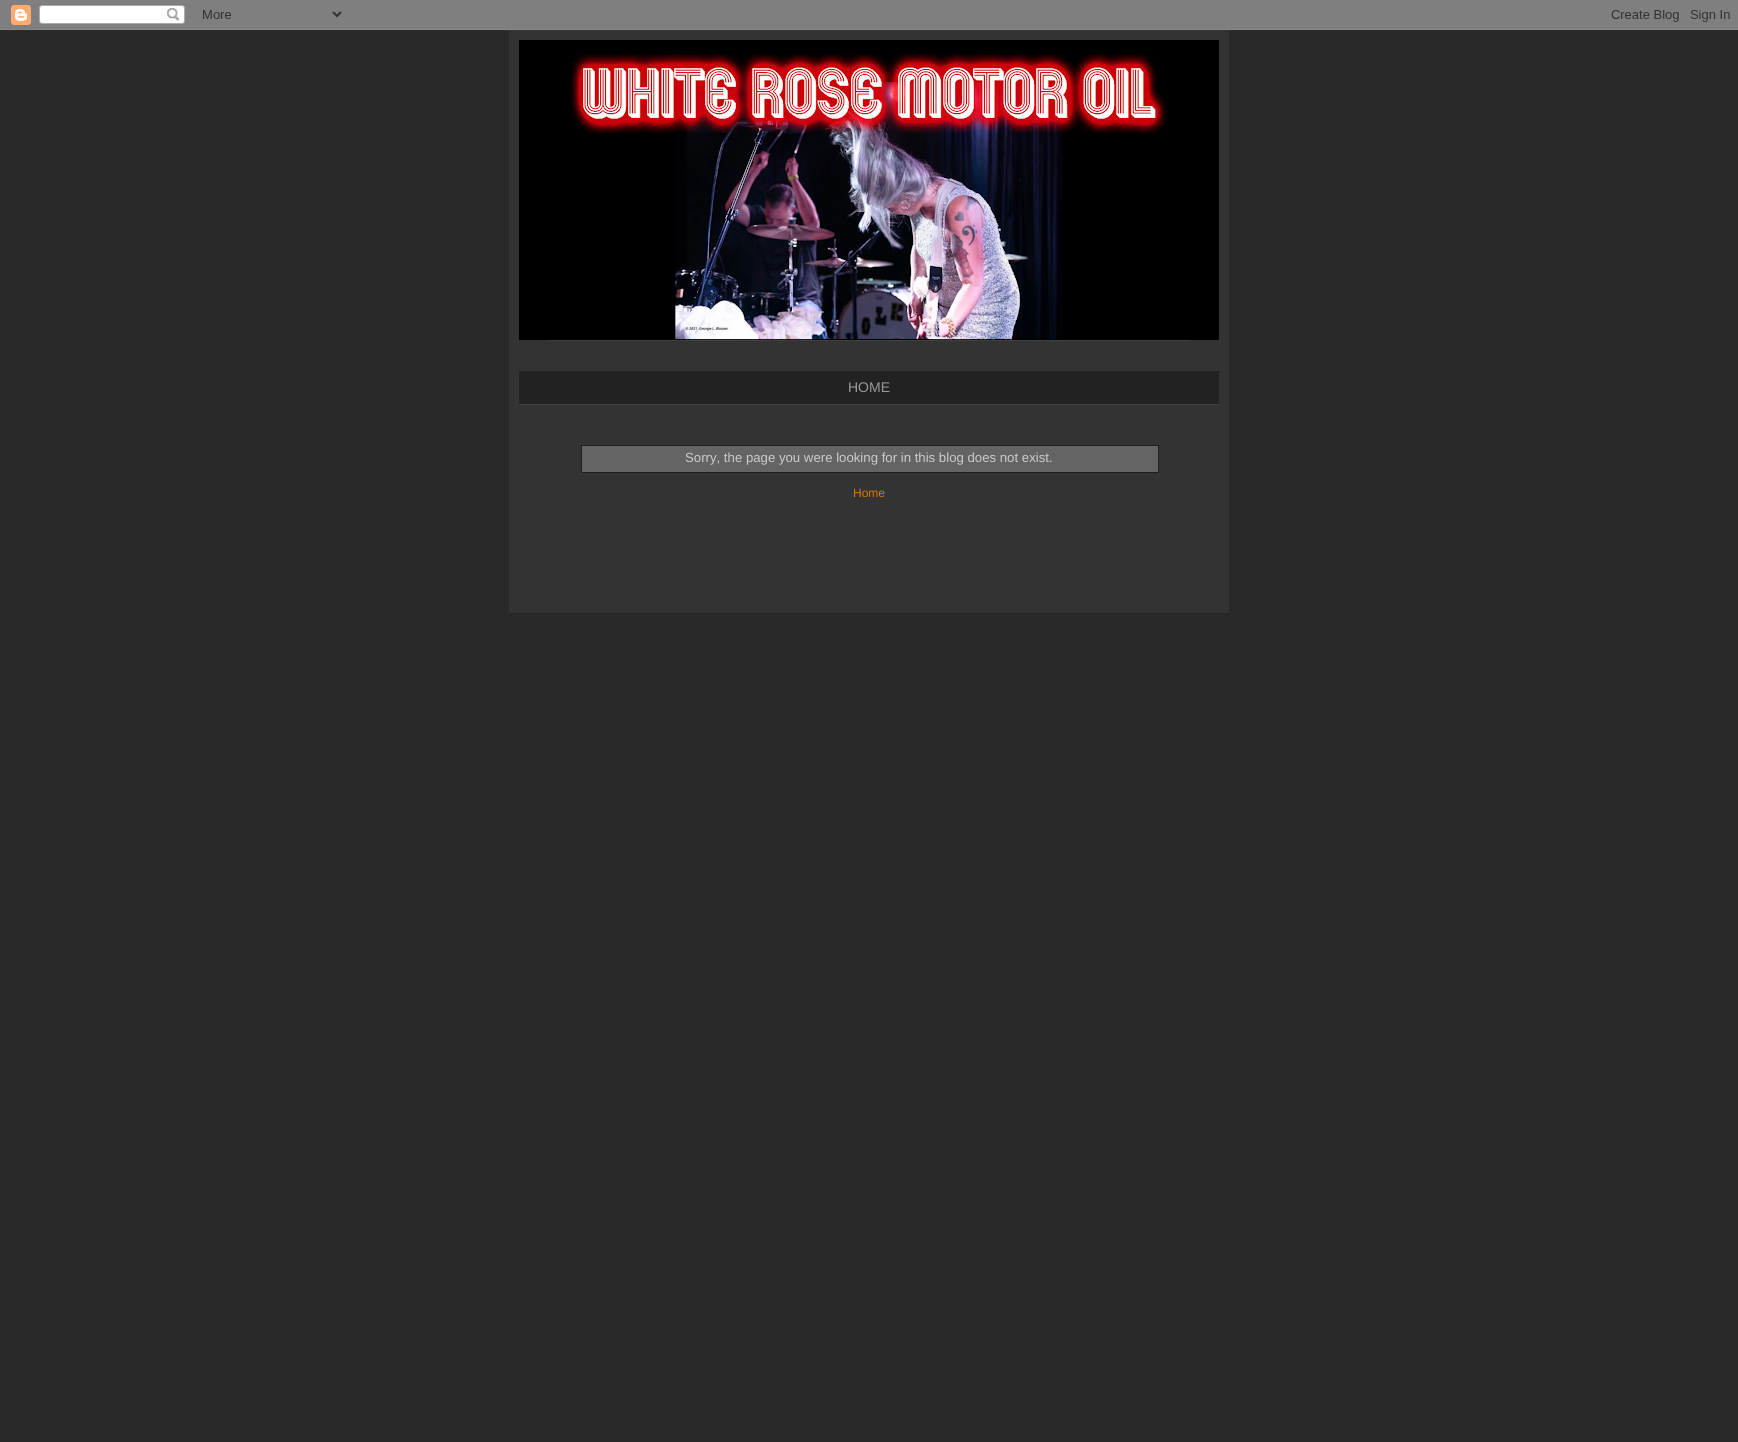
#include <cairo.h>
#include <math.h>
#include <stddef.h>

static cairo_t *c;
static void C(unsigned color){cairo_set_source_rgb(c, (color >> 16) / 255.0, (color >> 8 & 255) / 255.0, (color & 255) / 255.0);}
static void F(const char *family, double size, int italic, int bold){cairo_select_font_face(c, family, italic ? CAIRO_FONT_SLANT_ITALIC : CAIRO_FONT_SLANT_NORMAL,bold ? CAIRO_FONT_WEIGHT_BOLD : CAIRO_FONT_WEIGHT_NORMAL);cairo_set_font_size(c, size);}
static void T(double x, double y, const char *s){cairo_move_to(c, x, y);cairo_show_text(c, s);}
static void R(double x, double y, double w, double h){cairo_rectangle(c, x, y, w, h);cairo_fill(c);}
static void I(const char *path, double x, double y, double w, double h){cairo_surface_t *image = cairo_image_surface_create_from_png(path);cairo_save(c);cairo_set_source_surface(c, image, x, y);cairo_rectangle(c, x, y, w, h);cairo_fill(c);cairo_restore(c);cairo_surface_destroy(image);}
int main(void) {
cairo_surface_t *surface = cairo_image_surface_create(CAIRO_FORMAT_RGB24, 1738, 1442);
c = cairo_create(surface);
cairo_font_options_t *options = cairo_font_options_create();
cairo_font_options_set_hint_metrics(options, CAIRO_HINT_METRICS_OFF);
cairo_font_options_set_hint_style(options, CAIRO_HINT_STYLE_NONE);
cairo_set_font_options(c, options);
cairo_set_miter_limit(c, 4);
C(0x292929);
cairo_paint(c);
I("1.png",0,0,1738,30);
C(0x333333);
R(509,30,720,583);
I("2.png",519,40,700,300);
C(0x404040);
R(549,340,640,1);
C(0x222222);
R(519,371,700,33);
C(0x404040);
R(519,404,700,1);
F("Liberation Sans",14,0,0);
C(0x999999);
T(848,392,"HOME");
cairo_rectangle(c,581.5,445.5,577,27);
C(0x1f1f1f);
cairo_set_line_width(c,1);
cairo_stroke(c);
C(0x646464);
R(582,446,576,26);
F("Liberation Sans",13.2,0,0);
C(0xcccccc);
T(685,462,"Sorry, the page you were looking for in this blog does not exist.");
F("Liberation Sans",12,0,0);
C(0xdd7700);
T(853,497,"Home");
cairo_surface_write_to_png(surface, "o.png");
cairo_font_options_destroy(options);
cairo_destroy(c);
cairo_surface_destroy(surface);
return 0;
}
